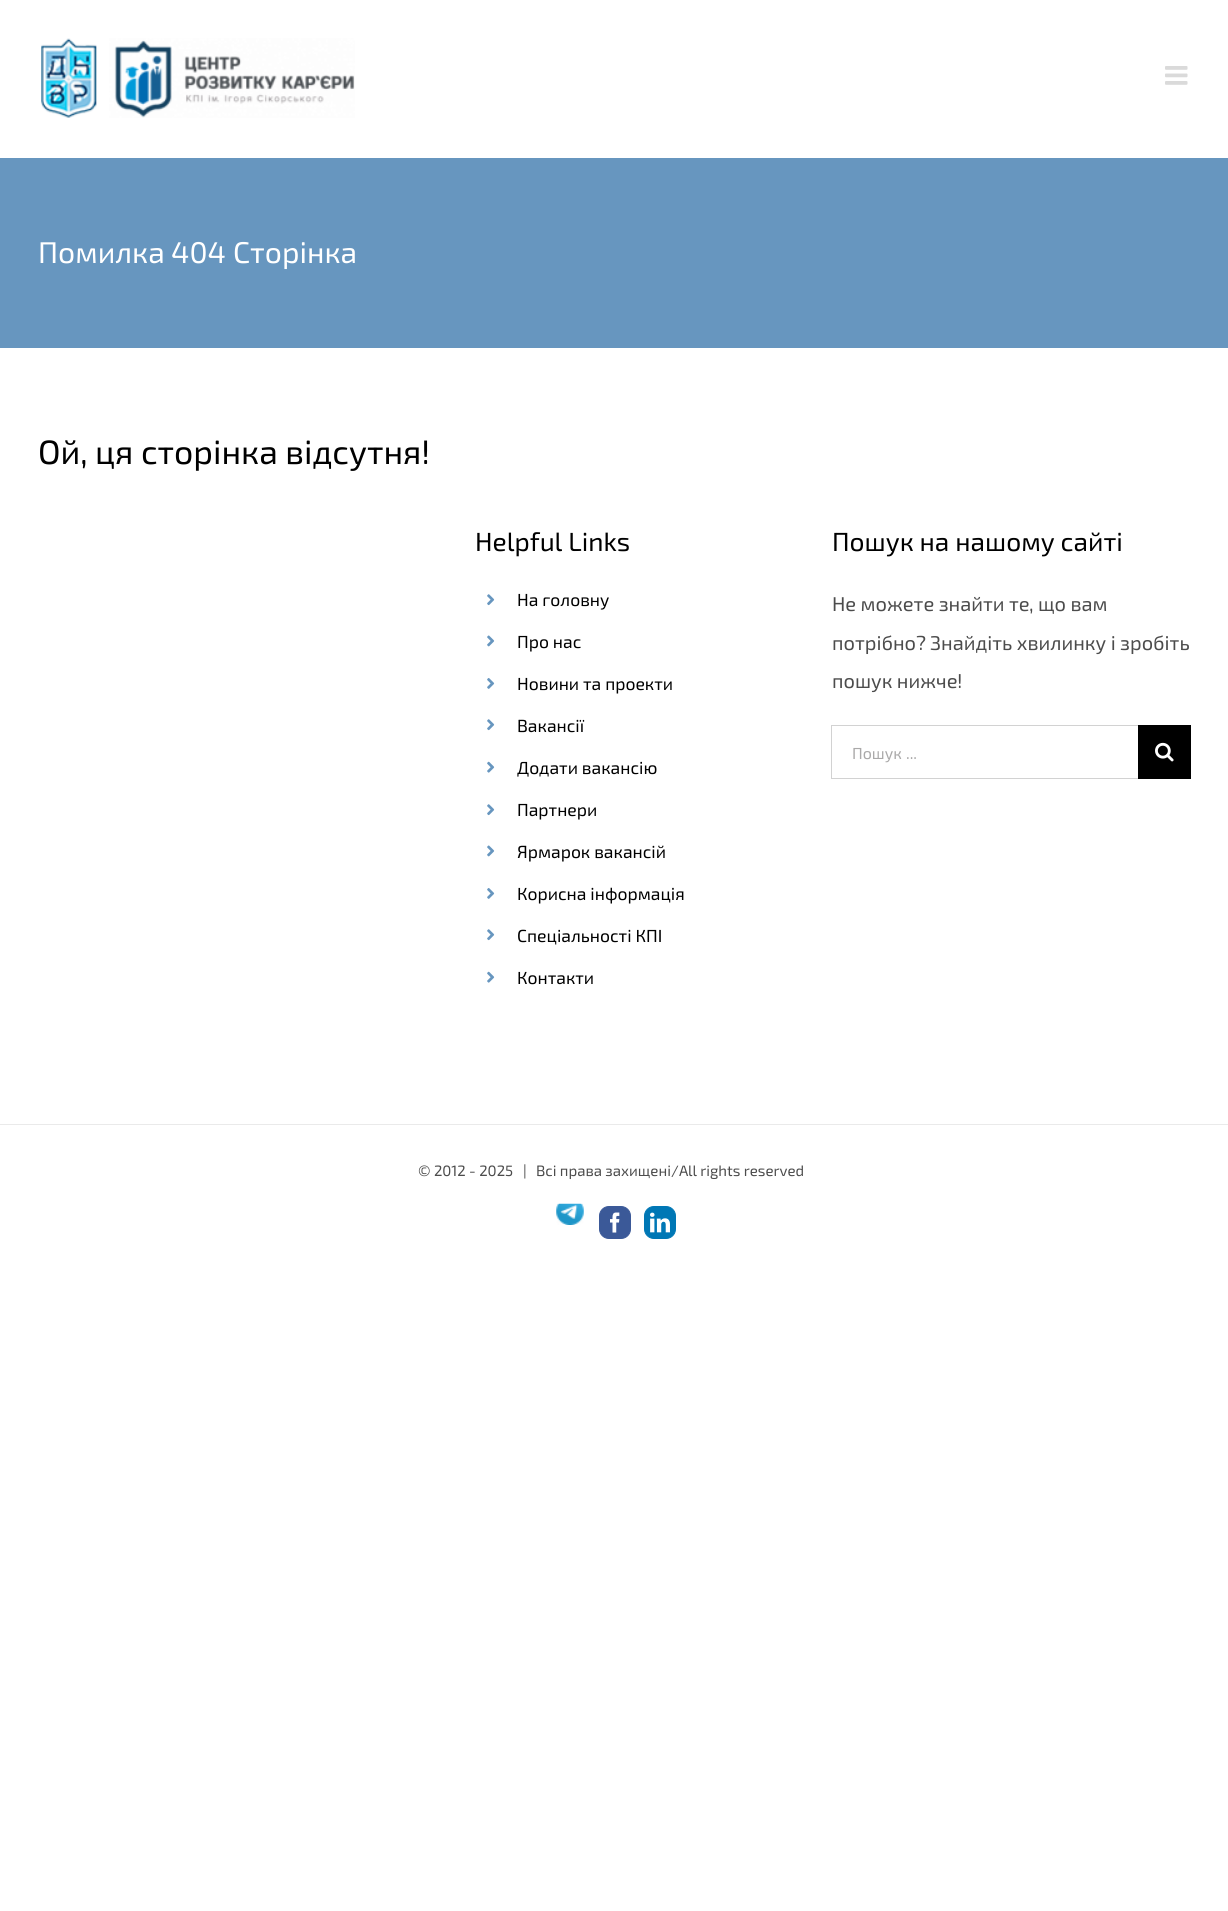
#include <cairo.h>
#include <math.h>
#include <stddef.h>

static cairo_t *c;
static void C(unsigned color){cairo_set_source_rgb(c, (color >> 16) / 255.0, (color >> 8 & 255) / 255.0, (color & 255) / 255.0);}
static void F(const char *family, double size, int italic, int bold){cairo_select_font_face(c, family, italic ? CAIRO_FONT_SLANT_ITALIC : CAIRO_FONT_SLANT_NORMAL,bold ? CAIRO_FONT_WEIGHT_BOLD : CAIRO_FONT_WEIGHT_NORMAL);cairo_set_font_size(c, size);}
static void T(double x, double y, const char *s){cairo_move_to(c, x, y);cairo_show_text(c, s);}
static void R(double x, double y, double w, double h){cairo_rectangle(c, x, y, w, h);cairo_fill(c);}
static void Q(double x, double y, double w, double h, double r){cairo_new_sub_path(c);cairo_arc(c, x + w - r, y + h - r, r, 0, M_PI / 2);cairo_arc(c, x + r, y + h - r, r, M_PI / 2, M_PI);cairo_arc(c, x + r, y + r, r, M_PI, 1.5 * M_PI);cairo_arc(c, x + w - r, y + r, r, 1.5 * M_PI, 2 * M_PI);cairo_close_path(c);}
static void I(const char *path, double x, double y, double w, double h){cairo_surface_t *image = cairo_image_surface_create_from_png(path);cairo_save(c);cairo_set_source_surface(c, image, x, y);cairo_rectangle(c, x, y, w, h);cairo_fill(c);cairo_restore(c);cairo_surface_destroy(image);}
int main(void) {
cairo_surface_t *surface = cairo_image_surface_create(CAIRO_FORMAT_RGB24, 1228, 1911);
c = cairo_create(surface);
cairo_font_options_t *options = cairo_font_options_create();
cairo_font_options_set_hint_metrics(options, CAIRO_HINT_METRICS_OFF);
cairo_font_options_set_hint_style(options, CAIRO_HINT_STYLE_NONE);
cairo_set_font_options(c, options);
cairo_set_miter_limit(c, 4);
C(0xffffff);
cairo_paint(c);
I("1.png",41,38,314,80);
I("2.png",1165,66,23,19);
C(0x6796bf);
R(0,158,1228,190);
F("Exo 2",30,0,0);
C(0xffffff);
T(38,263,"Помилка");
F("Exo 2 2",30,0,0);
T(171,263,"404");
F("Exo 2",30,0,0);
T(233,263,"Сторінка");
F("Exo 2",33.75,0,0);
C(0x000000);
T(38,464,"Ой");
F("Exo 2 2",33.75,0,0);
T(80,464,",");
F("Exo 2",33.75,0,0);
T(95,464,"ця сторінка відсутня");
F("Exo 2 2",33.75,0,0);
T(421,464,"!");
F("Exo 2 2",26.25,0,0);
T(475,551,"Helpful Links");
I("3.png",487,594,8,12);
F("Exo 2",17.5,0,0);
T(517,606,"На головну");
I("4.png",487,635,8,12);
T(517,648,"Про нас");
I("5.png",487,678,8,11);
T(517,690,"Новини та проекти");
I("3.png",487,719,8,12);
T(517,732,"Вакансії");
I("6.png",487,761,8,12);
T(517,774,"Додати вакансію");
I("3.png",487,804,8,12);
T(517,816,"Партнери");
I("4.png",487,845,8,12);
T(517,858,"Ярмарок вакансій");
I("5.png",487,888,8,11);
T(517,900,"Корисна інформація");
I("3.png",487,929,8,12);
T(517,942,"Спеціальності КПІ");
I("6.png",487,971,8,12);
T(517,984,"Контакти");
F("Exo 2",26.25,0,0);
T(832,551,"Пошук на нашому сайті");
F("Exo 2",20,0,0);
C(0x4c4c4c);
T(832,611,"Не можете знайти те");
F("Exo 2 2",20,0,0);
T(1029,611,",");
F("Exo 2",20,0,0);
T(1038,611,"що вам");
T(832,650,"потрібно");
F("Exo 2 2",20,0,0);
T(916,650,"?");
F("Exo 2",20,0,0);
T(930,650,"Знайдіть хвилинку і зробіть");
T(832,688,"пошук нижче");
F("Exo 2 2",20,0,0);
T(957,688,"!");
C(0xd2d2d2);
R(831,725,307,1);
R(831,778,307,1);
R(831,725,1,54);
F("Exo 2",16,0,0);
C(0xaaa9a9);
T(852,759,"Пошук");
F("Exo 2 2",16,0,0);
T(906,759,"...");
C(0x000000);
R(1138,725,53,54);
I("7.png",1155,742,19,20);
C(0xeaeaea);
R(0,1124,1228,1);
F("Exo 2 2",15,0,0);
C(0x4c4c4c);
T(418,1176,"© 2012 - 2025");
T(523,1176,"|");
F("Exo 2",15,0,0);
T(536,1176,"Всі права захищені");
F("Exo 2 2",15,0,0);
T(671,1176,"/");
F("Exo 2",15,0,0);
T(679,1176,"A");
F("Exo 2 2",15,0,0);
T(688,1176,"ll rights reserved");
I("8.png",556,1203,28,22);
C(0x3b5998);
Q(599.5,1206.5,31,32,9.5);
cairo_fill_preserve(c);
cairo_set_line_width(c,1);
cairo_stroke(c);
I("9.png",610,1212,10,21);
C(0x0077b5);
Q(644.5,1206.5,31,32,9.5);
cairo_fill_preserve(c);
cairo_stroke(c);
I("10.png",650,1212,20,21);
cairo_surface_write_to_png(surface, "o.png");
cairo_font_options_destroy(options);
cairo_destroy(c);
cairo_surface_destroy(surface);
return 0;
}
